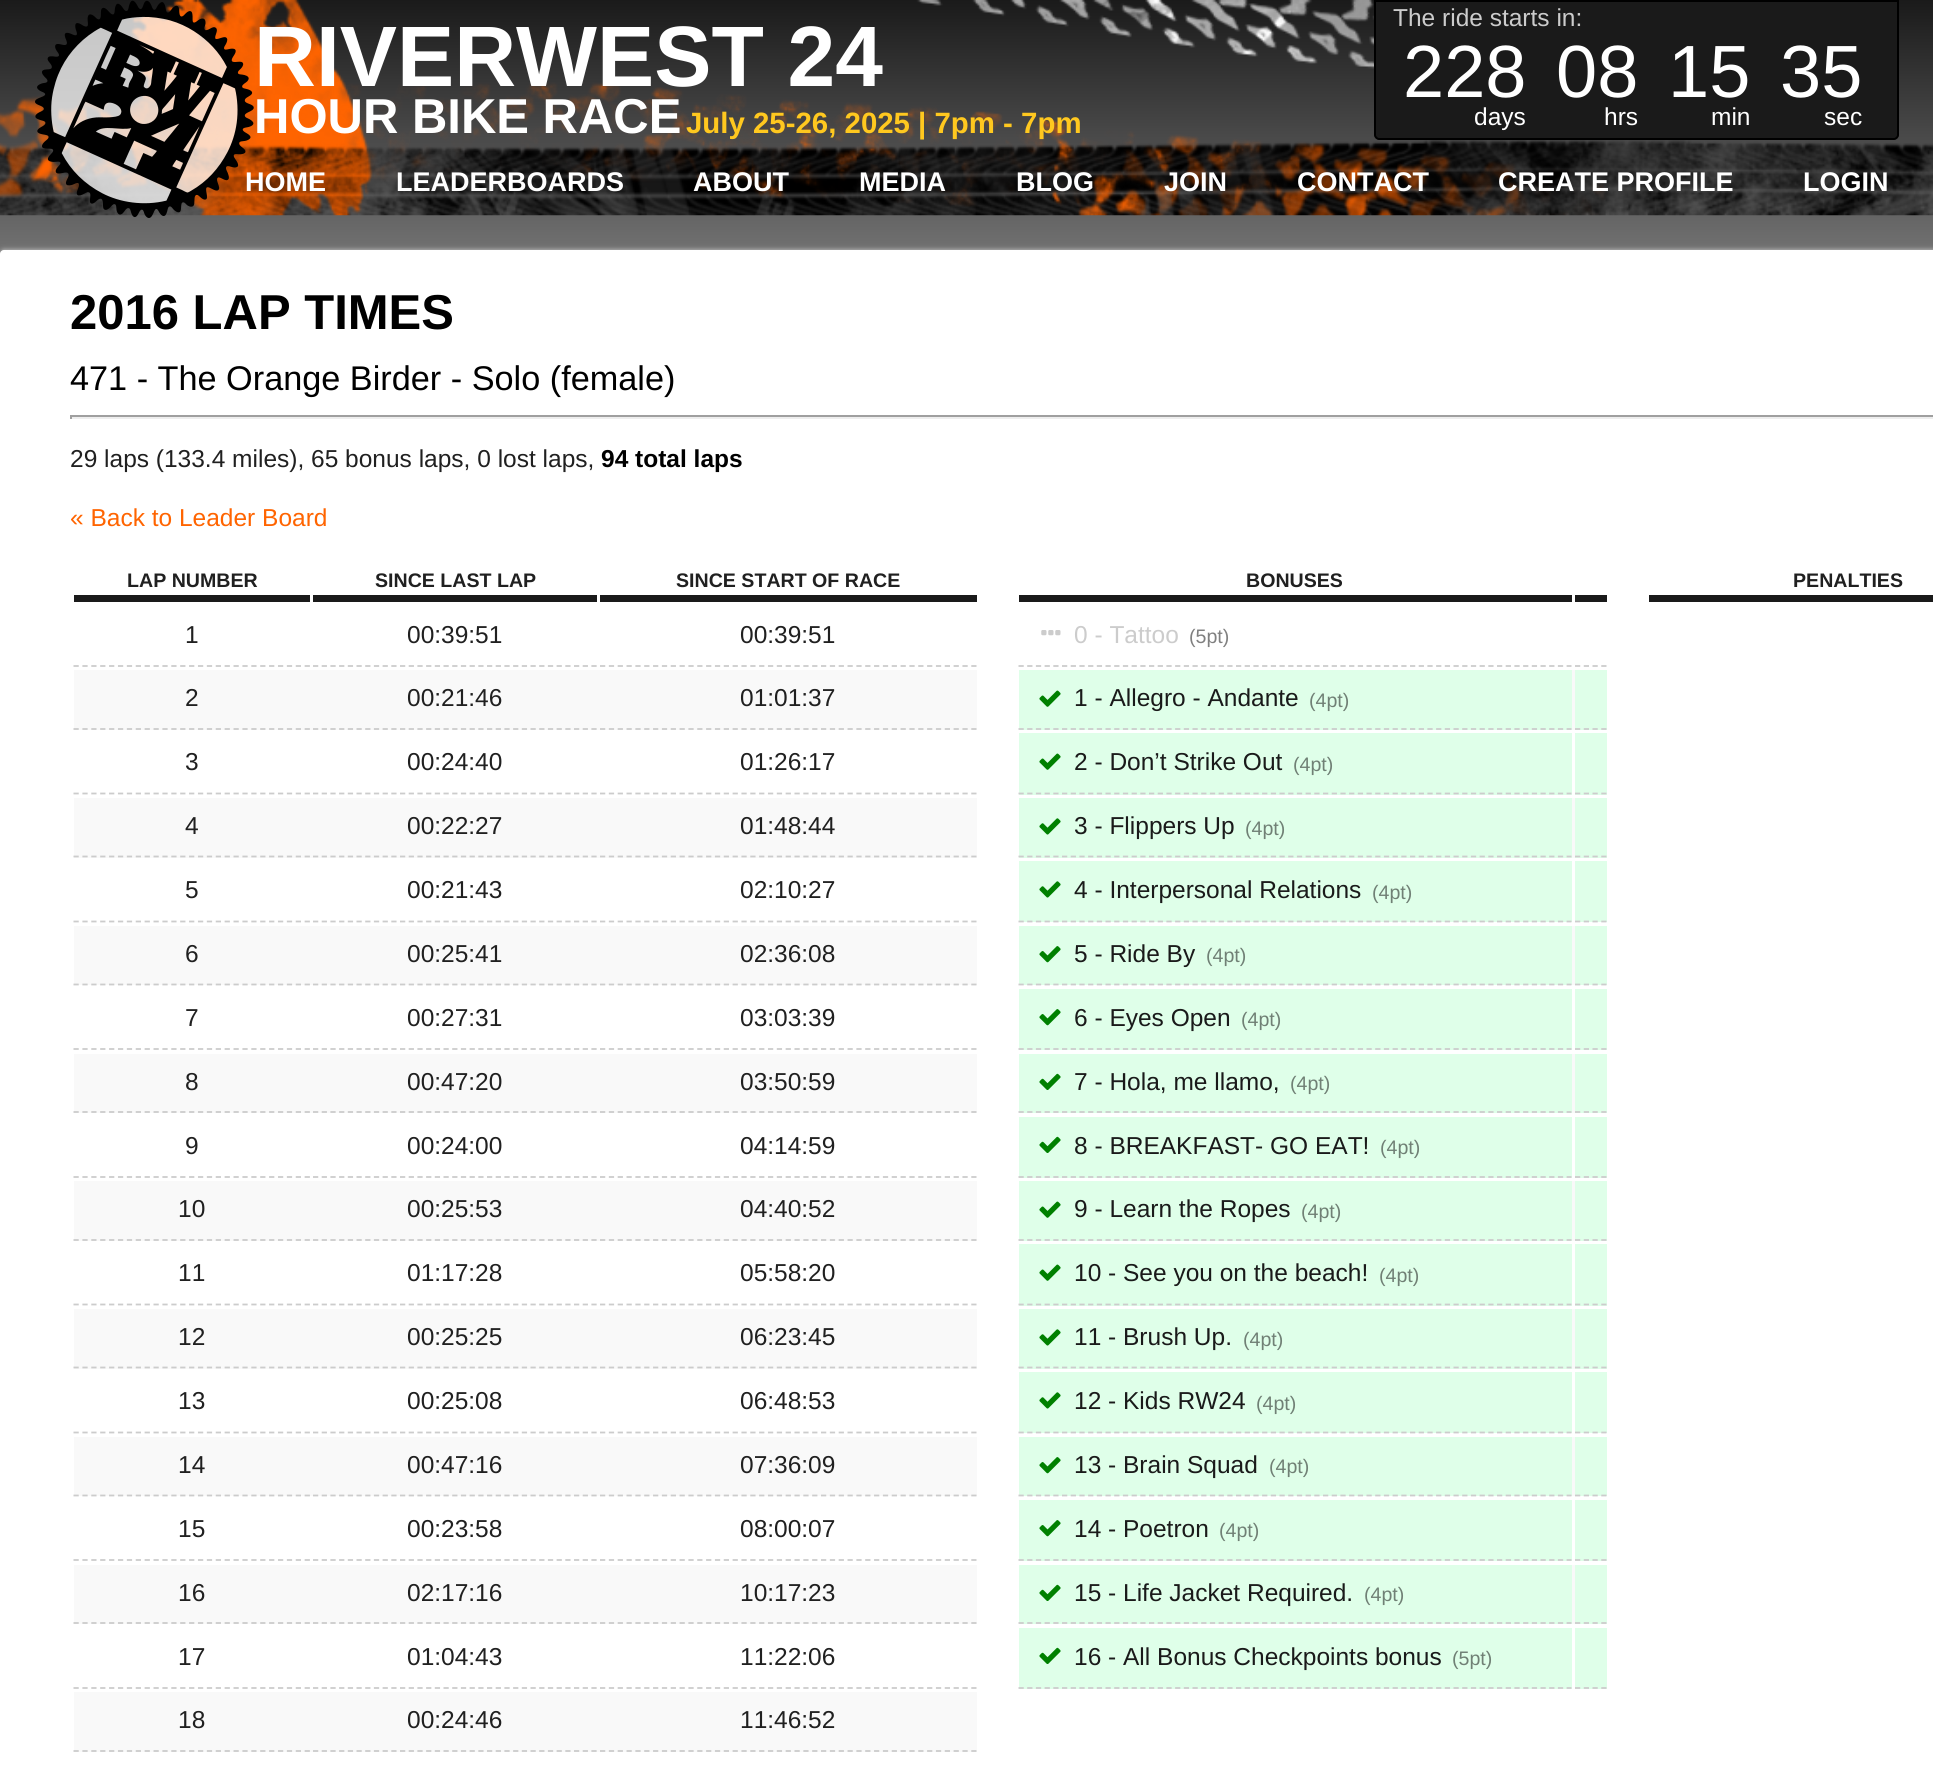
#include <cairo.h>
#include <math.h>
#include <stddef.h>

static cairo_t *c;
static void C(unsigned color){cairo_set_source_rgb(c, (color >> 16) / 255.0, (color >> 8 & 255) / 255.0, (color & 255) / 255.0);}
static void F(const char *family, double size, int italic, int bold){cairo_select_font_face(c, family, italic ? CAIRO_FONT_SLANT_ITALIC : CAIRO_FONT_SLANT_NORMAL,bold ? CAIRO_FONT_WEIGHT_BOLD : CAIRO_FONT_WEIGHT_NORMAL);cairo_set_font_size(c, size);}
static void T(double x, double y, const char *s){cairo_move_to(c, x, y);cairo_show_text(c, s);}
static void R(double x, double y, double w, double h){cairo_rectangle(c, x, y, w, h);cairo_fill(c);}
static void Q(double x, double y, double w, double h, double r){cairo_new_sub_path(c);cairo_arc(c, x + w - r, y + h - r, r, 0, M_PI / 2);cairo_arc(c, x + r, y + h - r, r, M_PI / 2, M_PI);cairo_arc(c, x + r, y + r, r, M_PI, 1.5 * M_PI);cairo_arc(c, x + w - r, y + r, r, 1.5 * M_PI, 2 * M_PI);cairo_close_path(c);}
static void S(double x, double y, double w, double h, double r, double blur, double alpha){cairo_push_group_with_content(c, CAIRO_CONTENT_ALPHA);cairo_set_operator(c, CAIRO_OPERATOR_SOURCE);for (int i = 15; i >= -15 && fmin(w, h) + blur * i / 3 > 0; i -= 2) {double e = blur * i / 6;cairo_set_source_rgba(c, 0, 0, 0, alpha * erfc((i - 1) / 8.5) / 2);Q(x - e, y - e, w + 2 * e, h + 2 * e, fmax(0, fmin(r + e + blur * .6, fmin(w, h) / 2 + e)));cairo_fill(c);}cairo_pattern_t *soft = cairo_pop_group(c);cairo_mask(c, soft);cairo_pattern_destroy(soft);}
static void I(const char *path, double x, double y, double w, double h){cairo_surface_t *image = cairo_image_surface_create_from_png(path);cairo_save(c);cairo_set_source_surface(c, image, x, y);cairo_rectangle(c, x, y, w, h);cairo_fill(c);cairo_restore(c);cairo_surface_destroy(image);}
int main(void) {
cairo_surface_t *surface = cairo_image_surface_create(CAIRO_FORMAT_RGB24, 1933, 1766);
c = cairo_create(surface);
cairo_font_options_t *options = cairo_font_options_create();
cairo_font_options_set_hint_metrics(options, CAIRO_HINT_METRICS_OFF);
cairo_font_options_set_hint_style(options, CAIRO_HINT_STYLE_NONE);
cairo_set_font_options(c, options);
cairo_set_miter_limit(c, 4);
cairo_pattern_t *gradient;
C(0xffffff);
cairo_paint(c);
gradient = cairo_pattern_create_linear(967,0,967,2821);
cairo_pattern_add_color_stop_rgba(gradient,0,0.102,0.102,0.102,1);
cairo_pattern_add_color_stop_rgba(gradient,.22,0.945,0.945,0.945,1);
cairo_set_source(c,gradient);
cairo_pattern_destroy(gradient);
R(0,0,1933,254);
I("1.png",0,0,1933,216);
I("2.png",35,0,219,218);
F("Liberation Sans",85.75,0,1);
C(0xffffff);
T(254,86,"RIVERWEST 24");
F("Liberation Sans",49,0,1);
T(254,133,"HOUR BIKE RACE");
F("Liberation Sans",29.4,0,1);
C(0xffc81f);
T(686,133,"July 25-26, 2025 | 7pm - 7pm");
C(0x1a1a1a);
cairo_new_path(c);
cairo_move_to(c,1375,1);
cairo_line_to(c,1898,1);
cairo_line_to(c,1898,135);
cairo_curve_to(c,1898,137,1896,139,1894,139);
cairo_line_to(c,1379,139);
cairo_curve_to(c,1377,139,1375,137,1375,135);
cairo_close_path(c);
cairo_fill_preserve(c);
C(0x000000);
cairo_stroke(c);
F("Liberation Sans",24.5,0,0);
C(0xcccccc);
T(1393,26,"The ride starts in:");
F("Liberation Sans",74,0,0);
C(0xffffff);
T(1403,97,"228");
F("Liberation Sans",24.5,0,0);
T(1474,125,"days");
F("Liberation Sans",74,0,0);
T(1556,97,"08");
F("Liberation Sans",24.5,0,0);
T(1604,125,"hrs");
F("Liberation Sans",74,0,0);
T(1668,97,"15");
F("Liberation Sans",24.5,0,0);
T(1711,125,"min");
F("Liberation Sans",74,0,0);
T(1780,97,"35");
F("Liberation Sans",24.5,0,0);
T(1824,125,"sec");
F("Liberation Sans",27,0,1);
T(245,191,"HOME");
T(396,191,"LEADERBOARDS");
T(693,191,"ABOUT");
T(859,191,"MEDIA");
T(1016,191,"BLOG");
T(1164,191,"JOIN");
T(1297,191,"CONTACT");
T(1498,191,"CREATE PROFILE");
T(1803,191,"LOGIN");
C(0xcccccc);
S(0,250,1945,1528,4,2.5,1);
C(0xffffff);
Q(0,250,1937,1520,4);
cairo_fill(c);
F("Liberation Sans",49,0,1);
C(0x000000);
T(70,329,"2016 LAP TIMES");
F("Liberation Sans",34.25,0,0);
T(70,390,"471 - The Orange Birder - Solo (female)");
C(0x9f9f9f);
R(70,415,1863,2);
C(0xeeeeee);
R(70,417,1863,2);
C(0x9f9f9f);
R(70,415,2,4);
F("Liberation Sans",24.5,0,0);
C(0x202020);
T(70,467,"29 laps (133.4 miles), 65 bonus laps, 0 lost laps,");
F("Liberation Sans",24.5,0,1);
C(0x000000);
T(601,467,"94 total laps");
F("Liberation Sans",24.5,0,0);
C(0xff6400);
T(70,526,"« Back to Leader Board");
C(0x1a1a1a);
R(74,595,236,7);
F("Liberation Sans",19.6,0,1);
C(0x202020);
T(127,587,"LAP NUMBER");
C(0x1a1a1a);
R(313,595,284,7);
C(0x202020);
T(375,587,"SINCE LAST LAP");
C(0x1a1a1a);
R(600,595,377,7);
C(0x202020);
T(676,587,"SINCE START OF RACE");
cairo_new_path(c);
cairo_move_to(c,73.5,666);
cairo_line_to(c,310,666);
C(0xcccccc);
cairo_set_line_width(c,1.8);
cairo_set_dash(c,(double[]){5.25,3.64},2,0);
cairo_stroke(c);
F("Liberation Sans",24.5,0,0);
C(0x202020);
T(185,643,"1");
cairo_new_path(c);
cairo_move_to(c,313,666);
cairo_line_to(c,597,666);
C(0xcccccc);
cairo_set_dash(c,(double[]){5.25,3.45},2,0);
cairo_stroke(c);
C(0x202020);
T(407,643,"00:39:51");
cairo_new_path(c);
cairo_move_to(c,600,666);
cairo_line_to(c,976.5,666);
C(0xcccccc);
cairo_set_dash(c,(double[]){5.25,3.59},2,0);
cairo_stroke(c);
C(0x202020);
T(740,643,"00:39:51");
C(0xf9f9f9);
R(74,670,903,60);
cairo_new_path(c);
cairo_move_to(c,73.5,729);
cairo_line_to(c,310,729);
C(0xcccccc);
cairo_set_dash(c,(double[]){5.25,3.64},2,0);
cairo_stroke(c);
C(0x202020);
T(185,706,"2");
cairo_new_path(c);
cairo_move_to(c,313,729);
cairo_line_to(c,597,729);
C(0xcccccc);
cairo_set_dash(c,(double[]){5.25,3.45},2,0);
cairo_stroke(c);
C(0x202020);
T(407,706,"00:21:46");
cairo_new_path(c);
cairo_move_to(c,600,729);
cairo_line_to(c,976.5,729);
C(0xcccccc);
cairo_set_dash(c,(double[]){5.25,3.59},2,0);
cairo_stroke(c);
C(0x202020);
T(740,706,"01:01:37");
cairo_new_path(c);
cairo_move_to(c,73.5,793.5);
cairo_line_to(c,310,793.5);
C(0xcccccc);
cairo_set_dash(c,(double[]){5.25,3.64},2,0);
cairo_stroke(c);
C(0x202020);
T(185,770,"3");
cairo_new_path(c);
cairo_move_to(c,313,793.5);
cairo_line_to(c,597,793.5);
C(0xcccccc);
cairo_set_dash(c,(double[]){5.25,3.45},2,0);
cairo_stroke(c);
C(0x202020);
T(407,770,"00:24:40");
cairo_new_path(c);
cairo_move_to(c,600,793.5);
cairo_line_to(c,976.5,793.5);
C(0xcccccc);
cairo_set_dash(c,(double[]){5.25,3.59},2,0);
cairo_stroke(c);
C(0x202020);
T(740,770,"01:26:17");
C(0xf9f9f9);
R(74,798,903,60);
cairo_new_path(c);
cairo_move_to(c,73.5,856.5);
cairo_line_to(c,310,856.5);
C(0xcccccc);
cairo_set_dash(c,(double[]){5.25,3.64},2,0);
cairo_stroke(c);
C(0x202020);
T(185,834,"4");
cairo_new_path(c);
cairo_move_to(c,313,856.5);
cairo_line_to(c,597,856.5);
C(0xcccccc);
cairo_set_dash(c,(double[]){5.25,3.45},2,0);
cairo_stroke(c);
C(0x202020);
T(407,834,"00:22:27");
cairo_new_path(c);
cairo_move_to(c,600,856.5);
cairo_line_to(c,976.5,856.5);
C(0xcccccc);
cairo_set_dash(c,(double[]){5.25,3.59},2,0);
cairo_stroke(c);
C(0x202020);
T(740,834,"01:48:44");
cairo_new_path(c);
cairo_move_to(c,73.5,921.5);
cairo_line_to(c,310,921.5);
C(0xcccccc);
cairo_set_dash(c,(double[]){5.25,3.64},2,0);
cairo_stroke(c);
C(0x202020);
T(185,898,"5");
cairo_new_path(c);
cairo_move_to(c,313,921.5);
cairo_line_to(c,597,921.5);
C(0xcccccc);
cairo_set_dash(c,(double[]){5.25,3.45},2,0);
cairo_stroke(c);
C(0x202020);
T(407,898,"00:21:43");
cairo_new_path(c);
cairo_move_to(c,600,921.5);
cairo_line_to(c,976.5,921.5);
C(0xcccccc);
cairo_set_dash(c,(double[]){5.25,3.59},2,0);
cairo_stroke(c);
C(0x202020);
T(740,898,"02:10:27");
C(0xf9f9f9);
R(74,926,903,59);
cairo_new_path(c);
cairo_move_to(c,73.5,984.5);
cairo_line_to(c,310,984.5);
C(0xcccccc);
cairo_set_dash(c,(double[]){5.25,3.64},2,0);
cairo_stroke(c);
C(0x202020);
T(185,962,"6");
cairo_new_path(c);
cairo_move_to(c,313,984.5);
cairo_line_to(c,597,984.5);
C(0xcccccc);
cairo_set_dash(c,(double[]){5.25,3.45},2,0);
cairo_stroke(c);
C(0x202020);
T(407,962,"00:25:41");
cairo_new_path(c);
cairo_move_to(c,600,984.5);
cairo_line_to(c,976.5,984.5);
C(0xcccccc);
cairo_set_dash(c,(double[]){5.25,3.59},2,0);
cairo_stroke(c);
C(0x202020);
T(740,962,"02:36:08");
cairo_new_path(c);
cairo_move_to(c,73.5,1049);
cairo_line_to(c,310,1049);
C(0xcccccc);
cairo_set_dash(c,(double[]){5.25,3.64},2,0);
cairo_stroke(c);
C(0x202020);
T(185,1026,"7");
cairo_new_path(c);
cairo_move_to(c,313,1049);
cairo_line_to(c,597,1049);
C(0xcccccc);
cairo_set_dash(c,(double[]){5.25,3.45},2,0);
cairo_stroke(c);
C(0x202020);
T(407,1026,"00:27:31");
cairo_new_path(c);
cairo_move_to(c,600,1049);
cairo_line_to(c,976.5,1049);
C(0xcccccc);
cairo_set_dash(c,(double[]){5.25,3.59},2,0);
cairo_stroke(c);
C(0x202020);
T(740,1026,"03:03:39");
C(0xf9f9f9);
R(74,1054,903,59);
cairo_new_path(c);
cairo_move_to(c,73.5,1112);
cairo_line_to(c,310,1112);
C(0xcccccc);
cairo_set_dash(c,(double[]){5.25,3.64},2,0);
cairo_stroke(c);
C(0x202020);
T(185,1090,"8");
cairo_new_path(c);
cairo_move_to(c,313,1112);
cairo_line_to(c,597,1112);
C(0xcccccc);
cairo_set_dash(c,(double[]){5.25,3.45},2,0);
cairo_stroke(c);
C(0x202020);
T(407,1090,"00:47:20");
cairo_new_path(c);
cairo_move_to(c,600,1112);
cairo_line_to(c,976.5,1112);
C(0xcccccc);
cairo_set_dash(c,(double[]){5.25,3.59},2,0);
cairo_stroke(c);
C(0x202020);
T(740,1090,"03:50:59");
cairo_new_path(c);
cairo_move_to(c,73.5,1177);
cairo_line_to(c,310,1177);
C(0xcccccc);
cairo_set_dash(c,(double[]){5.25,3.64},2,0);
cairo_stroke(c);
C(0x202020);
T(185,1154,"9");
cairo_new_path(c);
cairo_move_to(c,313,1177);
cairo_line_to(c,597,1177);
C(0xcccccc);
cairo_set_dash(c,(double[]){5.25,3.45},2,0);
cairo_stroke(c);
C(0x202020);
T(407,1154,"00:24:00");
cairo_new_path(c);
cairo_move_to(c,600,1177);
cairo_line_to(c,976.5,1177);
C(0xcccccc);
cairo_set_dash(c,(double[]){5.25,3.59},2,0);
cairo_stroke(c);
C(0x202020);
T(740,1154,"04:14:59");
C(0xf9f9f9);
R(74,1181,903,60);
cairo_new_path(c);
cairo_move_to(c,73.5,1240);
cairo_line_to(c,310,1240);
C(0xcccccc);
cairo_set_dash(c,(double[]){5.25,3.64},2,0);
cairo_stroke(c);
C(0x202020);
T(178,1217,"10");
cairo_new_path(c);
cairo_move_to(c,313,1240);
cairo_line_to(c,597,1240);
C(0xcccccc);
cairo_set_dash(c,(double[]){5.25,3.45},2,0);
cairo_stroke(c);
C(0x202020);
T(407,1217,"00:25:53");
cairo_new_path(c);
cairo_move_to(c,600,1240);
cairo_line_to(c,976.5,1240);
C(0xcccccc);
cairo_set_dash(c,(double[]){5.25,3.59},2,0);
cairo_stroke(c);
C(0x202020);
T(740,1217,"04:40:52");
cairo_new_path(c);
cairo_move_to(c,73.5,1304.5);
cairo_line_to(c,310,1304.5);
C(0xcccccc);
cairo_set_dash(c,(double[]){5.25,3.64},2,0);
cairo_stroke(c);
C(0x202020);
T(178,1281,"11");
cairo_new_path(c);
cairo_move_to(c,313,1304.5);
cairo_line_to(c,597,1304.5);
C(0xcccccc);
cairo_set_dash(c,(double[]){5.25,3.45},2,0);
cairo_stroke(c);
C(0x202020);
T(407,1281,"01:17:28");
cairo_new_path(c);
cairo_move_to(c,600,1304.5);
cairo_line_to(c,976.5,1304.5);
C(0xcccccc);
cairo_set_dash(c,(double[]){5.25,3.59},2,0);
cairo_stroke(c);
C(0x202020);
T(740,1281,"05:58:20");
C(0xf9f9f9);
R(74,1309,903,60);
cairo_new_path(c);
cairo_move_to(c,73.5,1367.5);
cairo_line_to(c,310,1367.5);
C(0xcccccc);
cairo_set_dash(c,(double[]){5.25,3.64},2,0);
cairo_stroke(c);
C(0x202020);
T(178,1345,"12");
cairo_new_path(c);
cairo_move_to(c,313,1367.5);
cairo_line_to(c,597,1367.5);
C(0xcccccc);
cairo_set_dash(c,(double[]){5.25,3.45},2,0);
cairo_stroke(c);
C(0x202020);
T(407,1345,"00:25:25");
cairo_new_path(c);
cairo_move_to(c,600,1367.5);
cairo_line_to(c,976.5,1367.5);
C(0xcccccc);
cairo_set_dash(c,(double[]){5.25,3.59},2,0);
cairo_stroke(c);
C(0x202020);
T(740,1345,"06:23:45");
cairo_new_path(c);
cairo_move_to(c,73.5,1432.5);
cairo_line_to(c,310,1432.5);
C(0xcccccc);
cairo_set_dash(c,(double[]){5.25,3.64},2,0);
cairo_stroke(c);
C(0x202020);
T(178,1409,"13");
cairo_new_path(c);
cairo_move_to(c,313,1432.5);
cairo_line_to(c,597,1432.5);
C(0xcccccc);
cairo_set_dash(c,(double[]){5.25,3.45},2,0);
cairo_stroke(c);
C(0x202020);
T(407,1409,"00:25:08");
cairo_new_path(c);
cairo_move_to(c,600,1432.5);
cairo_line_to(c,976.5,1432.5);
C(0xcccccc);
cairo_set_dash(c,(double[]){5.25,3.59},2,0);
cairo_stroke(c);
C(0x202020);
T(740,1409,"06:48:53");
C(0xf9f9f9);
R(74,1437,903,59);
cairo_new_path(c);
cairo_move_to(c,73.5,1495.5);
cairo_line_to(c,310,1495.5);
C(0xcccccc);
cairo_set_dash(c,(double[]){5.25,3.64},2,0);
cairo_stroke(c);
C(0x202020);
T(178,1473,"14");
cairo_new_path(c);
cairo_move_to(c,313,1495.5);
cairo_line_to(c,597,1495.5);
C(0xcccccc);
cairo_set_dash(c,(double[]){5.25,3.45},2,0);
cairo_stroke(c);
C(0x202020);
T(407,1473,"00:47:16");
cairo_new_path(c);
cairo_move_to(c,600,1495.5);
cairo_line_to(c,976.5,1495.5);
C(0xcccccc);
cairo_set_dash(c,(double[]){5.25,3.59},2,0);
cairo_stroke(c);
C(0x202020);
T(740,1473,"07:36:09");
cairo_new_path(c);
cairo_move_to(c,73.5,1560);
cairo_line_to(c,310,1560);
C(0xcccccc);
cairo_set_dash(c,(double[]){5.25,3.64},2,0);
cairo_stroke(c);
C(0x202020);
T(178,1537,"15");
cairo_new_path(c);
cairo_move_to(c,313,1560);
cairo_line_to(c,597,1560);
C(0xcccccc);
cairo_set_dash(c,(double[]){5.25,3.45},2,0);
cairo_stroke(c);
C(0x202020);
T(407,1537,"00:23:58");
cairo_new_path(c);
cairo_move_to(c,600,1560);
cairo_line_to(c,976.5,1560);
C(0xcccccc);
cairo_set_dash(c,(double[]){5.25,3.59},2,0);
cairo_stroke(c);
C(0x202020);
T(740,1537,"08:00:07");
C(0xf9f9f9);
R(74,1565,903,59);
cairo_new_path(c);
cairo_move_to(c,73.5,1623);
cairo_line_to(c,310,1623);
C(0xcccccc);
cairo_set_dash(c,(double[]){5.25,3.64},2,0);
cairo_stroke(c);
C(0x202020);
T(178,1601,"16");
cairo_new_path(c);
cairo_move_to(c,313,1623);
cairo_line_to(c,597,1623);
C(0xcccccc);
cairo_set_dash(c,(double[]){5.25,3.45},2,0);
cairo_stroke(c);
C(0x202020);
T(407,1601,"02:17:16");
cairo_new_path(c);
cairo_move_to(c,600,1623);
cairo_line_to(c,976.5,1623);
C(0xcccccc);
cairo_set_dash(c,(double[]){5.25,3.59},2,0);
cairo_stroke(c);
C(0x202020);
T(740,1601,"10:17:23");
cairo_new_path(c);
cairo_move_to(c,73.5,1688);
cairo_line_to(c,310,1688);
C(0xcccccc);
cairo_set_dash(c,(double[]){5.25,3.64},2,0);
cairo_stroke(c);
C(0x202020);
T(178,1665,"17");
cairo_new_path(c);
cairo_move_to(c,313,1688);
cairo_line_to(c,597,1688);
C(0xcccccc);
cairo_set_dash(c,(double[]){5.25,3.45},2,0);
cairo_stroke(c);
C(0x202020);
T(407,1665,"01:04:43");
cairo_new_path(c);
cairo_move_to(c,600,1688);
cairo_line_to(c,976.5,1688);
C(0xcccccc);
cairo_set_dash(c,(double[]){5.25,3.59},2,0);
cairo_stroke(c);
C(0x202020);
T(740,1665,"11:22:06");
C(0xf9f9f9);
R(74,1692,903,60);
cairo_new_path(c);
cairo_move_to(c,73.5,1751);
cairo_line_to(c,310,1751);
C(0xcccccc);
cairo_set_dash(c,(double[]){5.25,3.64},2,0);
cairo_stroke(c);
C(0x202020);
T(178,1728,"18");
cairo_new_path(c);
cairo_move_to(c,313,1751);
cairo_line_to(c,597,1751);
C(0xcccccc);
cairo_set_dash(c,(double[]){5.25,3.45},2,0);
cairo_stroke(c);
C(0x202020);
T(407,1728,"00:24:46");
cairo_new_path(c);
cairo_move_to(c,600,1751);
cairo_line_to(c,976.5,1751);
C(0xcccccc);
cairo_set_dash(c,(double[]){5.25,3.59},2,0);
cairo_stroke(c);
C(0x202020);
T(740,1728,"11:46:52");
C(0x1a1a1a);
R(1019,595,553,7);
F("Liberation Sans",19.6,0,1);
C(0x202020);
T(1246,587,"BONUSES");
C(0x1a1a1a);
R(1575,595,32,7);
cairo_new_path(c);
cairo_move_to(c,1018.5,666);
cairo_line_to(c,1571.5,666);
C(0xcccccc);
cairo_set_dash(c,(double[]){5.25,3.45},2,0);
cairo_stroke(c);
I("3.png",1041,630,20,6);
F("Liberation Sans",24.5,0,0);
T(1074,643,"0 - Tattoo");
F("Liberation Sans",19.6,0,0);
C(0x808080);
T(1189,643,"(5pt)");
cairo_new_path(c);
cairo_move_to(c,1575,666);
cairo_line_to(c,1606.5,666);
C(0xcccccc);
cairo_set_dash(c,(double[]){5.25,3.5},2,0);
cairo_stroke(c);
C(0xf9f9f9);
R(1572,670,3,60);
C(0xdfffe9);
R(1019,670,553,60);
cairo_new_path(c);
cairo_move_to(c,1018.5,729);
cairo_line_to(c,1571.5,729);
C(0xcccccc);
cairo_set_dash(c,(double[]){5.25,3.45},2,0);
cairo_stroke(c);
I("4.png",1039,690,22,17);
F("Liberation Sans",24.5,0,0);
C(0x1a1a1a);
T(1074,706,"1 - Allegro - Andante");
F("Liberation Sans",19.6,0,0);
C(0x708075);
T(1309,707,"(4pt)");
C(0xdfffe9);
R(1575,670,32,60);
cairo_new_path(c);
cairo_move_to(c,1575,729);
cairo_line_to(c,1606.5,729);
C(0xcccccc);
cairo_set_dash(c,(double[]){5.25,3.5},2,0);
cairo_stroke(c);
C(0xdfffe9);
R(1019,733,553,62);
cairo_new_path(c);
cairo_move_to(c,1018.5,793.5);
cairo_line_to(c,1571.5,793.5);
C(0xcccccc);
cairo_set_dash(c,(double[]){5.25,3.45},2,0);
cairo_stroke(c);
I("4.png",1039,753,22,17);
F("Liberation Sans",24.5,0,0);
C(0x1a1a1a);
T(1074,770,"2 - Don’t Strike Out");
F("Liberation Sans",19.6,0,0);
C(0x708075);
T(1293,771,"(4pt)");
C(0xdfffe9);
R(1575,733,32,62);
cairo_new_path(c);
cairo_move_to(c,1575,793.5);
cairo_line_to(c,1606.5,793.5);
C(0xcccccc);
cairo_set_dash(c,(double[]){5.25,3.5},2,0);
cairo_stroke(c);
C(0xf9f9f9);
R(1572,798,3,60);
C(0xdfffe9);
R(1019,798,553,60);
cairo_new_path(c);
cairo_move_to(c,1018.5,856.5);
cairo_line_to(c,1571.5,856.5);
C(0xcccccc);
cairo_set_dash(c,(double[]){5.25,3.45},2,0);
cairo_stroke(c);
I("5.png",1039,818,22,17);
F("Liberation Sans",24.5,0,0);
C(0x1a1a1a);
T(1074,834,"3 - Flippers Up");
F("Liberation Sans",19.6,0,0);
C(0x708075);
T(1245,835,"(4pt)");
C(0xdfffe9);
R(1575,798,32,60);
cairo_new_path(c);
cairo_move_to(c,1575,856.5);
cairo_line_to(c,1606.5,856.5);
C(0xcccccc);
cairo_set_dash(c,(double[]){5.25,3.5},2,0);
cairo_stroke(c);
C(0xdfffe9);
R(1019,861,553,61);
cairo_new_path(c);
cairo_move_to(c,1018.5,921.5);
cairo_line_to(c,1571.5,921.5);
C(0xcccccc);
cairo_set_dash(c,(double[]){5.25,3.45},2,0);
cairo_stroke(c);
I("5.png",1039,881,22,17);
F("Liberation Sans",24.5,0,0);
C(0x1a1a1a);
T(1074,898,"4 - Interpersonal Relations");
F("Liberation Sans",19.6,0,0);
C(0x708075);
T(1372,899,"(4pt)");
C(0xdfffe9);
R(1575,861,32,61);
cairo_new_path(c);
cairo_move_to(c,1575,921.5);
cairo_line_to(c,1606.5,921.5);
C(0xcccccc);
cairo_set_dash(c,(double[]){5.25,3.5},2,0);
cairo_stroke(c);
C(0xf9f9f9);
R(1572,926,3,59);
C(0xdfffe9);
R(1019,926,553,59);
cairo_new_path(c);
cairo_move_to(c,1018.5,984.5);
cairo_line_to(c,1571.5,984.5);
C(0xcccccc);
cairo_set_dash(c,(double[]){5.25,3.45},2,0);
cairo_stroke(c);
I("6.png",1039,946,22,17);
F("Liberation Sans",24.5,0,0);
C(0x1a1a1a);
T(1074,962,"5 - Ride By");
F("Liberation Sans",19.6,0,0);
C(0x708075);
T(1206,962,"(4pt)");
C(0xdfffe9);
R(1575,926,32,59);
cairo_new_path(c);
cairo_move_to(c,1575,984.5);
cairo_line_to(c,1606.5,984.5);
C(0xcccccc);
cairo_set_dash(c,(double[]){5.25,3.5},2,0);
cairo_stroke(c);
C(0xdfffe9);
R(1019,989,553,61);
cairo_new_path(c);
cairo_move_to(c,1018.5,1049);
cairo_line_to(c,1571.5,1049);
C(0xcccccc);
cairo_set_dash(c,(double[]){5.25,3.45},2,0);
cairo_stroke(c);
I("6.png",1039,1009,22,17);
F("Liberation Sans",24.5,0,0);
C(0x1a1a1a);
T(1074,1026,"6 - Eyes Open");
F("Liberation Sans",19.6,0,0);
C(0x708075);
T(1241,1026,"(4pt)");
C(0xdfffe9);
R(1575,989,32,61);
cairo_new_path(c);
cairo_move_to(c,1575,1049);
cairo_line_to(c,1606.5,1049);
C(0xcccccc);
cairo_set_dash(c,(double[]){5.25,3.5},2,0);
cairo_stroke(c);
C(0xf9f9f9);
R(1572,1054,3,59);
C(0xdfffe9);
R(1019,1054,553,59);
cairo_new_path(c);
cairo_move_to(c,1018.5,1112);
cairo_line_to(c,1571.5,1112);
C(0xcccccc);
cairo_set_dash(c,(double[]){5.25,3.45},2,0);
cairo_stroke(c);
I("7.png",1039,1073,22,17);
F("Liberation Sans",24.5,0,0);
C(0x1a1a1a);
T(1074,1090,"7 - Hola, me llamo,");
F("Liberation Sans",19.6,0,0);
C(0x708075);
T(1290,1090,"(4pt)");
C(0xdfffe9);
R(1575,1054,32,59);
cairo_new_path(c);
cairo_move_to(c,1575,1112);
cairo_line_to(c,1606.5,1112);
C(0xcccccc);
cairo_set_dash(c,(double[]){5.25,3.5},2,0);
cairo_stroke(c);
C(0xdfffe9);
R(1019,1117,553,61);
cairo_new_path(c);
cairo_move_to(c,1018.5,1177);
cairo_line_to(c,1571.5,1177);
C(0xcccccc);
cairo_set_dash(c,(double[]){5.25,3.45},2,0);
cairo_stroke(c);
I("7.png",1039,1136,22,17);
F("Liberation Sans",24.5,0,0);
C(0x1a1a1a);
T(1074,1154,"8 - BREAKFAST- GO EAT!");
F("Liberation Sans",19.6,0,0);
C(0x708075);
T(1380,1154,"(4pt)");
C(0xdfffe9);
R(1575,1117,32,61);
cairo_new_path(c);
cairo_move_to(c,1575,1177);
cairo_line_to(c,1606.5,1177);
C(0xcccccc);
cairo_set_dash(c,(double[]){5.25,3.5},2,0);
cairo_stroke(c);
C(0xf9f9f9);
R(1572,1181,3,60);
C(0xdfffe9);
R(1019,1181,553,60);
cairo_new_path(c);
cairo_move_to(c,1018.5,1240);
cairo_line_to(c,1571.5,1240);
C(0xcccccc);
cairo_set_dash(c,(double[]){5.25,3.45},2,0);
cairo_stroke(c);
I("4.png",1039,1201,22,17);
F("Liberation Sans",24.5,0,0);
C(0x1a1a1a);
T(1074,1217,"9 - Learn the Ropes");
F("Liberation Sans",19.6,0,0);
C(0x708075);
T(1301,1218,"(4pt)");
C(0xdfffe9);
R(1575,1181,32,60);
cairo_new_path(c);
cairo_move_to(c,1575,1240);
cairo_line_to(c,1606.5,1240);
C(0xcccccc);
cairo_set_dash(c,(double[]){5.25,3.5},2,0);
cairo_stroke(c);
C(0xdfffe9);
R(1019,1244,553,62);
cairo_new_path(c);
cairo_move_to(c,1018.5,1304.5);
cairo_line_to(c,1571.5,1304.5);
C(0xcccccc);
cairo_set_dash(c,(double[]){5.25,3.45},2,0);
cairo_stroke(c);
I("4.png",1039,1264,22,17);
F("Liberation Sans",24.5,0,0);
C(0x1a1a1a);
T(1074,1281,"10 - See you on the beach!");
F("Liberation Sans",19.6,0,0);
C(0x708075);
T(1379,1282,"(4pt)");
C(0xdfffe9);
R(1575,1244,32,62);
cairo_new_path(c);
cairo_move_to(c,1575,1304.5);
cairo_line_to(c,1606.5,1304.5);
C(0xcccccc);
cairo_set_dash(c,(double[]){5.25,3.5},2,0);
cairo_stroke(c);
C(0xf9f9f9);
R(1572,1309,3,60);
C(0xdfffe9);
R(1019,1309,553,60);
cairo_new_path(c);
cairo_move_to(c,1018.5,1367.5);
cairo_line_to(c,1571.5,1367.5);
C(0xcccccc);
cairo_set_dash(c,(double[]){5.25,3.45},2,0);
cairo_stroke(c);
I("5.png",1039,1329,22,17);
F("Liberation Sans",24.5,0,0);
C(0x1a1a1a);
T(1074,1345,"11 - Brush Up.");
F("Liberation Sans",19.6,0,0);
C(0x708075);
T(1243,1346,"(4pt)");
C(0xdfffe9);
R(1575,1309,32,60);
cairo_new_path(c);
cairo_move_to(c,1575,1367.5);
cairo_line_to(c,1606.5,1367.5);
C(0xcccccc);
cairo_set_dash(c,(double[]){5.25,3.5},2,0);
cairo_stroke(c);
C(0xdfffe9);
R(1019,1372,553,61);
cairo_new_path(c);
cairo_move_to(c,1018.5,1432.5);
cairo_line_to(c,1571.5,1432.5);
C(0xcccccc);
cairo_set_dash(c,(double[]){5.25,3.45},2,0);
cairo_stroke(c);
I("5.png",1039,1392,22,17);
F("Liberation Sans",24.5,0,0);
C(0x1a1a1a);
T(1074,1409,"12 - Kids RW24");
F("Liberation Sans",19.6,0,0);
C(0x708075);
T(1256,1410,"(4pt)");
C(0xdfffe9);
R(1575,1372,32,61);
cairo_new_path(c);
cairo_move_to(c,1575,1432.5);
cairo_line_to(c,1606.5,1432.5);
C(0xcccccc);
cairo_set_dash(c,(double[]){5.25,3.5},2,0);
cairo_stroke(c);
C(0xf9f9f9);
R(1572,1437,3,59);
C(0xdfffe9);
R(1019,1437,553,59);
cairo_new_path(c);
cairo_move_to(c,1018.5,1495.5);
cairo_line_to(c,1571.5,1495.5);
C(0xcccccc);
cairo_set_dash(c,(double[]){5.25,3.45},2,0);
cairo_stroke(c);
I("6.png",1039,1457,22,17);
F("Liberation Sans",24.5,0,0);
C(0x1a1a1a);
T(1074,1473,"13 - Brain Squad");
F("Liberation Sans",19.6,0,0);
C(0x708075);
T(1269,1473,"(4pt)");
C(0xdfffe9);
R(1575,1437,32,59);
cairo_new_path(c);
cairo_move_to(c,1575,1495.5);
cairo_line_to(c,1606.5,1495.5);
C(0xcccccc);
cairo_set_dash(c,(double[]){5.25,3.5},2,0);
cairo_stroke(c);
C(0xdfffe9);
R(1019,1500,553,61);
cairo_new_path(c);
cairo_move_to(c,1018.5,1560);
cairo_line_to(c,1571.5,1560);
C(0xcccccc);
cairo_set_dash(c,(double[]){5.25,3.45},2,0);
cairo_stroke(c);
I("6.png",1039,1520,22,17);
F("Liberation Sans",24.5,0,0);
C(0x1a1a1a);
T(1074,1537,"14 - Poetron");
F("Liberation Sans",19.6,0,0);
C(0x708075);
T(1219,1537,"(4pt)");
C(0xdfffe9);
R(1575,1500,32,61);
cairo_new_path(c);
cairo_move_to(c,1575,1560);
cairo_line_to(c,1606.5,1560);
C(0xcccccc);
cairo_set_dash(c,(double[]){5.25,3.5},2,0);
cairo_stroke(c);
C(0xf9f9f9);
R(1572,1565,3,59);
C(0xdfffe9);
R(1019,1565,553,59);
cairo_new_path(c);
cairo_move_to(c,1018.5,1623);
cairo_line_to(c,1571.5,1623);
C(0xcccccc);
cairo_set_dash(c,(double[]){5.25,3.45},2,0);
cairo_stroke(c);
I("7.png",1039,1584,22,17);
F("Liberation Sans",24.5,0,0);
C(0x1a1a1a);
T(1074,1601,"15 - Life Jacket Required.");
F("Liberation Sans",19.6,0,0);
C(0x708075);
T(1364,1601,"(4pt)");
C(0xdfffe9);
R(1575,1565,32,59);
cairo_new_path(c);
cairo_move_to(c,1575,1623);
cairo_line_to(c,1606.5,1623);
C(0xcccccc);
cairo_set_dash(c,(double[]){5.25,3.5},2,0);
cairo_stroke(c);
C(0xdfffe9);
R(1019,1628,553,61);
cairo_new_path(c);
cairo_move_to(c,1018.5,1688);
cairo_line_to(c,1571.5,1688);
C(0xcccccc);
cairo_set_dash(c,(double[]){5.25,3.45},2,0);
cairo_stroke(c);
I("7.png",1039,1647,22,17);
F("Liberation Sans",24.5,0,0);
C(0x1a1a1a);
T(1074,1665,"16 - All Bonus Checkpoints bonus");
F("Liberation Sans",19.6,0,0);
C(0x708075);
T(1452,1665,"(5pt)");
C(0xdfffe9);
R(1575,1628,32,61);
cairo_new_path(c);
cairo_move_to(c,1575,1688);
cairo_line_to(c,1606.5,1688);
C(0xcccccc);
cairo_set_dash(c,(double[]){5.25,3.5},2,0);
cairo_stroke(c);
C(0x1a1a1a);
R(1649,595,284,7);
F("Liberation Sans",19.6,0,1);
C(0x202020);
T(1793,587,"PENALTIES");
cairo_surface_write_to_png(surface, "o.png");
cairo_font_options_destroy(options);
cairo_destroy(c);
cairo_surface_destroy(surface);
return 0;
}
